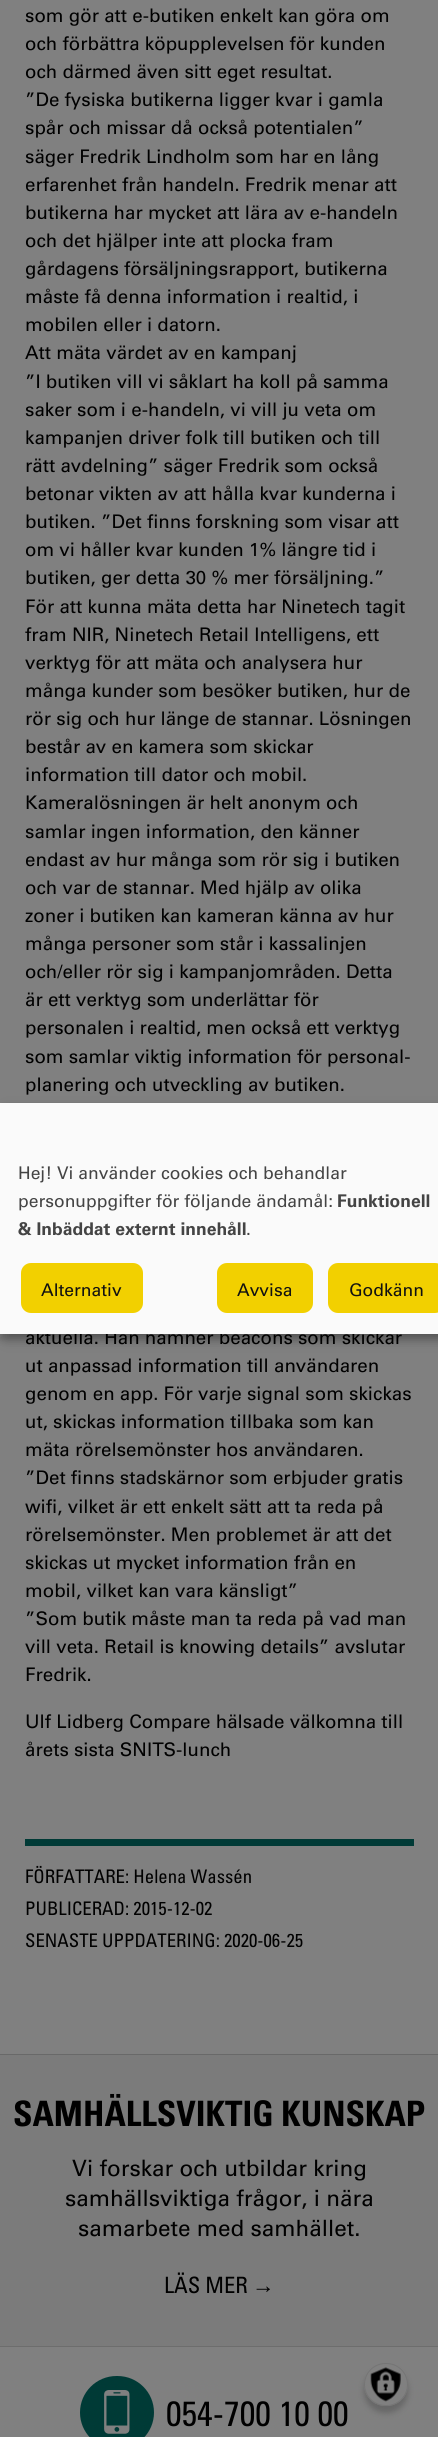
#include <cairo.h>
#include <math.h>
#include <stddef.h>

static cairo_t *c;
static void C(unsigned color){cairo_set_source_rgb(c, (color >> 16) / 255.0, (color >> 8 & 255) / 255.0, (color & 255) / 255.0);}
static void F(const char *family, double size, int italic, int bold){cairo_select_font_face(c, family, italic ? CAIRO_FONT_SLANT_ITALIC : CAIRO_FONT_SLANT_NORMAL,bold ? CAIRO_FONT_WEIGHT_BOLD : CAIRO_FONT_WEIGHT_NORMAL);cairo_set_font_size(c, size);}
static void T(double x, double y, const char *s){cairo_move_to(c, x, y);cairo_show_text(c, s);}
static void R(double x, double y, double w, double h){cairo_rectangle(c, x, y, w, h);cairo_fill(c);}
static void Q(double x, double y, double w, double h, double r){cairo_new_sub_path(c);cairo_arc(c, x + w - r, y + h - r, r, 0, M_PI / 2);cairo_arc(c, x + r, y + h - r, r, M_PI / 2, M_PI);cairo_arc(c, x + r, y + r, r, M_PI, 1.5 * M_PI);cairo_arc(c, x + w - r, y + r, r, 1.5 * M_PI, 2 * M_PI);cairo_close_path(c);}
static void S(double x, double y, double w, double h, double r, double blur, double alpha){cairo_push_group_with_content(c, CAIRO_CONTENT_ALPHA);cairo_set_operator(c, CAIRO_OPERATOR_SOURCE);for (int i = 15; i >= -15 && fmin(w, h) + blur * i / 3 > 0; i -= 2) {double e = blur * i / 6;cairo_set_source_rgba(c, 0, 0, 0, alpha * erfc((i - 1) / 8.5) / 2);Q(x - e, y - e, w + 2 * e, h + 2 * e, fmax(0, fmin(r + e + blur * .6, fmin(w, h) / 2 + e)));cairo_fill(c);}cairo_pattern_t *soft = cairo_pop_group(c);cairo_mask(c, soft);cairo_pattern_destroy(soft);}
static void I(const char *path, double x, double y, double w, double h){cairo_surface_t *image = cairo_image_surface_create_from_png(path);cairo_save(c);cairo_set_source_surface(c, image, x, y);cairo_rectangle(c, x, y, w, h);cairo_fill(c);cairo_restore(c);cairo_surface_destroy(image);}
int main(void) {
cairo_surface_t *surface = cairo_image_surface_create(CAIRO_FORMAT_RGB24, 438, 2437);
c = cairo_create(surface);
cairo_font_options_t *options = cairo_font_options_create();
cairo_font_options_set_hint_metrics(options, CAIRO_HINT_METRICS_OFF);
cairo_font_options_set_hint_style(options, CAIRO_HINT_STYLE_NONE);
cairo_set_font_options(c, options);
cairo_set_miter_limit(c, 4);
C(0x808080);
cairo_paint(c);
F("Univers",18.75,0,0);
C(0x000000);
T(25,22,"som gör att e-butiken enkelt kan göra om");
T(25,50,"och förbättra köpupplevelsen för kunden");
T(25,78,"och därmed även sitt eget resultat.");
T(25,106,"”De fysiska butikerna ligger kvar i gamla");
T(25,134,"spår och missar då också potentialen”");
T(25,163,"säger Fredrik Lindholm som har en lång");
T(25,191,"erfarenhet från handeln. Fredrik menar att");
T(25,219,"butikerna har mycket att lära av e-handeln");
T(25,247,"och det hjälper inte att plocka fram");
T(25,275,"gårdagens försäljningsrapport, butikerna");
T(25,303,"måste få denna information i realtid, i");
T(25,331,"mobilen eller i datorn.");
T(25,359,"Att mäta värdet av en kampanj");
T(25,388,"”I butiken vill vi såklart ha koll på samma");
T(25,416,"saker som i e-handeln, vi vill ju veta om");
T(25,444,"kampanjen driver folk till butiken och till");
T(25,472,"rätt avdelning” säger Fredrik som också");
T(25,500,"betonar vikten av att hålla kvar kunderna i");
T(25,528,"butiken. ”Det finns forskning som visar att");
T(25,556,"om vi håller kvar kunden 1% längre tid i");
T(25,584,"butiken, ger detta 30 % mer försäljning.”");
T(25,613,"För att kunna mäta detta har Ninetech tagit");
T(25,641,"fram NIR, Ninetech Retail Intelligens, ett");
T(25,669,"verktyg för att mäta och analysera hur");
T(25,697,"många kunder som besöker butiken, hur de");
T(25,725,"rör sig och hur länge de stannar. Lösningen");
T(25,753,"består av en kamera som skickar");
T(25,781,"information till dator och mobil.");
T(25,809,"Kameralösningen är helt anonym och");
T(25,838,"samlar ingen information, den känner");
T(25,866,"endast av hur många som rör sig i butiken");
T(25,894,"och var de stannar. Med hjälp av olika");
T(25,922,"zoner i butiken kan kameran känna av hur");
T(25,950,"många personer som står i kassalinjen");
T(25,978,"och/eller rör sig i kampanjområden. Detta");
T(25,1006,"är ett verktyg som underlättar för");
T(25,1034,"personalen i realtid, men också ett verktyg");
T(25,1063,"som samlar viktig information för personal-");
T(25,1091,"planering och utveckling av butiken.");
T(25,1344,"aktuella. Han nämner beacons som skickar");
T(25,1372,"ut anpassad information till användaren");
T(25,1400,"genom en app. För varje signal som skickas");
T(25,1428,"ut, skickas information tillbaka som kan");
T(25,1456,"mäta rörelsemönster hos användaren.");
T(25,1484,"”Det finns stadskärnor som erbjuder gratis");
T(25,1513,"wifi, vilket är ett enkelt sätt att ta reda på");
T(25,1541,"rörelsemönster. Men problemet är att det");
T(25,1569,"skickas ut mycket information från en");
T(25,1597,"mobil, vilket kan vara känsligt”");
T(25,1625,"”Som butik måste man ta reda på vad man");
T(25,1653,"vill veta. Retail is knowing details” avslutar");
T(25,1681,"Fredrik.");
T(25,1728,"Ulf Lidberg Compare hälsade välkomna till");
T(25,1756,"årets sista SNITS-lunch");
C(0x003a36);
R(25,1839,389,7);
F("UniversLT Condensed",18.75,0,0);
C(0x000000);
T(25,1883,"FÖRFATTARE: Helena Wassén");
T(25,1915,"PUBLICERAD: 2015-12-02");
T(25,1947,"SENASTE UPPDATERING: 2020-06-25");
C(0x7b7b7b);
R(0,2055,438,291);
C(0x696969);
R(0,2054,438,1);
F("UniversLT Condensed",35,0,1);
C(0x000000);
T(13,2126,"SAMHÄLLSVIKTIG KUNSKAP");
F("Univers",22.5,0,0);
T(72,2176,"Vi forskar och utbildar kring");
T(65,2206,"samhällsviktiga frågor, i nära");
T(78,2236,"samarbete med samhället.");
F("UniversLT Condensed",22.5,0,0);
T(164,2293,"LÄS MER");
F("Liberation Sans",22.5,0,0);
T(252,2293,"→");
C(0x6d6d6d);
R(0,2346,438,1);
C(0x003a36);
Q(80,2376,74,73,36.5);
cairo_fill(c);
I("1.png",104,2390,26,44);
F("UniversLT Condensed",35,0,0);
C(0x000000);
T(166,2426,"054-700 10 00");
C(0x000000);
S(6,1109,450,231,0,6,.19);
S(0,1108,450,231,0,4,.2);
C(0xfafafa);
R(0,1103,438,231);
F("Univers",17.5,0,0);
C(0x444444);
T(18,1179,"Hej! Vi använder cookies och behandlar");
T(18,1207,"personuppgifter för följande ändamål:");
F("Univers",17.5,0,1);
T(337,1207,"Funktionell");
T(18,1235,"& Inbäddat externt innehåll");
F("Univers",17.5,0,0);
T(246,1235,".");
C(0xf2d000);
Q(19.5,1261.5,125,53,11.5);
cairo_fill_preserve(c);
C(0xfafafa);
cairo_set_line_width(c,3);
cairo_stroke(c);
C(0x111111);
T(41,1296,"Alternativ");
C(0xf2d000);
Q(215.5,1261.5,99,53,11.5);
cairo_fill_preserve(c);
C(0xfafafa);
cairo_stroke(c);
C(0x111111);
T(237,1296,"Avvisa");
C(0xf2d000);
Q(326.5,1261.5,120,53,11.5);
cairo_fill_preserve(c);
C(0xfafafa);
cairo_stroke(c);
C(0x111111);
T(349,1296,"Godkänn");
C(0x000000);
S(364,2369,44,44,22,3,.2);
C(0x808080);
Q(364,2363,44,43,21.5);
cairo_fill(c);
I("2.png",370,2367,31,35);
Q(364.5,2363.5,43,42,21);
C(0x757575);
cairo_set_line_width(c,1);
cairo_stroke(c);
cairo_surface_write_to_png(surface, "o.png");
cairo_font_options_destroy(options);
cairo_destroy(c);
cairo_surface_destroy(surface);
return 0;
}
